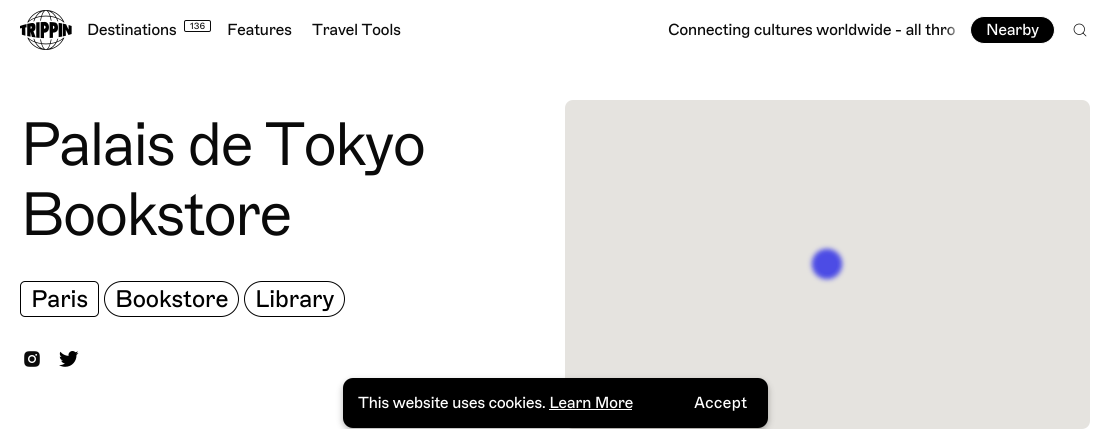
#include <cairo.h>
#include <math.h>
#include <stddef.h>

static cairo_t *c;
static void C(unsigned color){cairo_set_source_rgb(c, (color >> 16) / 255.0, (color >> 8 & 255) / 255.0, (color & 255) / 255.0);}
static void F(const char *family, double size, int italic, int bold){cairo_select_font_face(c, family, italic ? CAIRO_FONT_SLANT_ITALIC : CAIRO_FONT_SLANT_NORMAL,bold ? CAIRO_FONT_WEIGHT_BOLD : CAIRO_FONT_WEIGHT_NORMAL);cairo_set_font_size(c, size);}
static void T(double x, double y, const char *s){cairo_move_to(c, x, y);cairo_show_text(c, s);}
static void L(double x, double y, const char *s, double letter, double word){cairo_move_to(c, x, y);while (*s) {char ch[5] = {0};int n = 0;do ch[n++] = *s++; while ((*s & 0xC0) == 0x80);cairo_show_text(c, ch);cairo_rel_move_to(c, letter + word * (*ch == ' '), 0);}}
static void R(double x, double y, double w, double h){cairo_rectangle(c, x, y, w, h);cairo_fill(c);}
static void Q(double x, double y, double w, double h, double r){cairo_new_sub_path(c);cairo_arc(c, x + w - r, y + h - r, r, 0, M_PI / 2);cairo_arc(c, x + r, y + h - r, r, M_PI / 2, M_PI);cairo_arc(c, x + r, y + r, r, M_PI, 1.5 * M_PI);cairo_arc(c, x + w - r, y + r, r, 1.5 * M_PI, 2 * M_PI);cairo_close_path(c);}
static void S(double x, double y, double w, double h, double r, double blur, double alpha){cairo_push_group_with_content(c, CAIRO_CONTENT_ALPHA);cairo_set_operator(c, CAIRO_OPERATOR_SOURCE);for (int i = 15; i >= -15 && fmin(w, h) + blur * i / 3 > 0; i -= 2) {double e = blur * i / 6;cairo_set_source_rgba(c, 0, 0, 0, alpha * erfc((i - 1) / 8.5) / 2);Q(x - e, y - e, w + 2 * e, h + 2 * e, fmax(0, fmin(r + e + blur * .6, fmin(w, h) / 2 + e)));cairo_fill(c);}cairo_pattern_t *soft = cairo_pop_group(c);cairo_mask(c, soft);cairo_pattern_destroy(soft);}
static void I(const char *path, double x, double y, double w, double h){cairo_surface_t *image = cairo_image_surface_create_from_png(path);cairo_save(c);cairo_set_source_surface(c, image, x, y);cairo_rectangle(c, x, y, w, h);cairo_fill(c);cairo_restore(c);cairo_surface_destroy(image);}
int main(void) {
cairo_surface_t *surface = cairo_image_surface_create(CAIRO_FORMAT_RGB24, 1110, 429);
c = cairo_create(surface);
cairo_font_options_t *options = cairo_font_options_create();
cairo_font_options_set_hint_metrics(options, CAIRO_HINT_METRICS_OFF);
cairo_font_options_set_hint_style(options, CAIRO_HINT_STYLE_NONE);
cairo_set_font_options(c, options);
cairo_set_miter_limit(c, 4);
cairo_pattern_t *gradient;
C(0xffffff);
cairo_paint(c);
I("1.png",20,10,52,40);
F("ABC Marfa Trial",16,0,0);
C(0x0a0a0a);
L(87,35,"Destinations",-.5,0);
Q(184.5,20.5,26,11,1.5);
cairo_set_line_width(c,1);
cairo_stroke(c);
F("ABC Marfa Trial",9,0,0);
T(190,29,"136");
F("ABC Marfa Trial",16,0,0);
L(227,35,"Features",-.5,0);
L(312,35,"Travel Tools",-.5,0);
L(668,35,"Connecting cultures worldwide - all thro",-.5,0);
gradient = cairo_pattern_create_linear(965,30,945,30);
cairo_pattern_add_color_stop_rgba(gradient,0,1,1,1,1);
cairo_pattern_add_color_stop_rgba(gradient,.1,1,1,1,1);
cairo_pattern_add_color_stop_rgba(gradient,1,1,1,1,0);
cairo_set_source(c,gradient);
cairo_pattern_destroy(gradient);
R(945,26,10,10);
C(0x000000);
Q(970.5,16.5,84,27,13.5);
cairo_fill_preserve(c);
C(0xffffff);
cairo_stroke(c);
L(986,35,"Nearby",-.5,0);
I("2.png",1073,23,14,14);
F("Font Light",61,0,0);
C(0x0a0a0a);
L(20,165,"Palais de Tokyo",-3,0);
L(20,235,"Bookstore",-3,0);
Q(20.5,281.5,78,35,4.5);
C(0x000000);
cairo_stroke(c);
F("ABC Marfa Trial",24,0,0);
L(31,307,"Paris",-.5,0);
Q(104.5,281.5,134,35,17.5);
cairo_stroke(c);
L(115,307,"Bookstore",-.5,0);
Q(244.5,281.5,100,35,17.5);
cairo_stroke(c);
L(255,307,"Library",-.5,0);
I("3.png",24,351,16,16);
I("4.png",59,351,20,16);
C(0xe5e3df);
Q(565,100,525,329,8);
cairo_fill(c);
C(0x4c4ce5);
S(812,249,30,30,15,2.5,1);
C(0x4c4ce5);
cairo_arc(c,827.5,264.5,9.5,0,2 * M_PI);
cairo_fill(c);
C(0x000000);
S(343,381,425,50,10,3.5,.29);
C(0x000000);
Q(343,378,425,50,10);
cairo_fill(c);
F("ABC Marfa Trial",16,0,0);
C(0xffffff);
L(358,408,"This website uses cookies. Learn More",-.5,0);
R(549,409,83,1);
T(694,408,"Accept");
cairo_surface_write_to_png(surface, "o.png");
cairo_font_options_destroy(options);
cairo_destroy(c);
cairo_surface_destroy(surface);
return 0;
}
